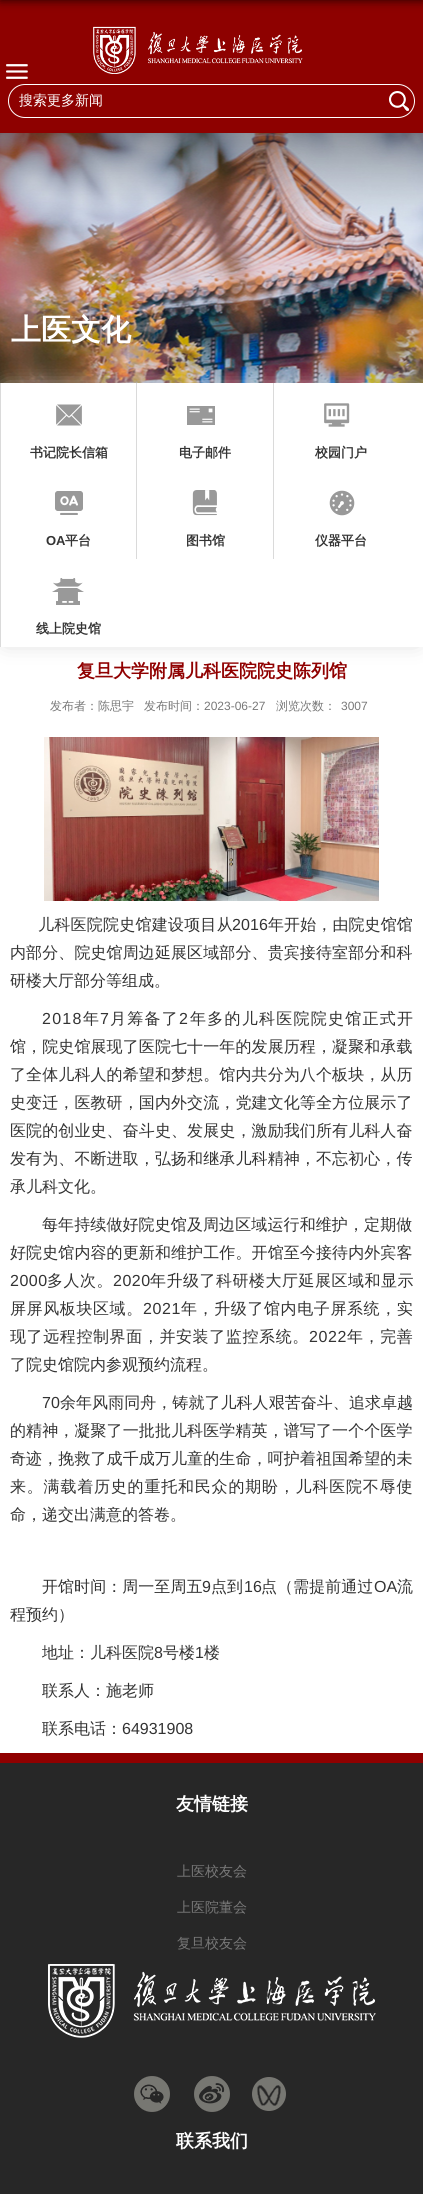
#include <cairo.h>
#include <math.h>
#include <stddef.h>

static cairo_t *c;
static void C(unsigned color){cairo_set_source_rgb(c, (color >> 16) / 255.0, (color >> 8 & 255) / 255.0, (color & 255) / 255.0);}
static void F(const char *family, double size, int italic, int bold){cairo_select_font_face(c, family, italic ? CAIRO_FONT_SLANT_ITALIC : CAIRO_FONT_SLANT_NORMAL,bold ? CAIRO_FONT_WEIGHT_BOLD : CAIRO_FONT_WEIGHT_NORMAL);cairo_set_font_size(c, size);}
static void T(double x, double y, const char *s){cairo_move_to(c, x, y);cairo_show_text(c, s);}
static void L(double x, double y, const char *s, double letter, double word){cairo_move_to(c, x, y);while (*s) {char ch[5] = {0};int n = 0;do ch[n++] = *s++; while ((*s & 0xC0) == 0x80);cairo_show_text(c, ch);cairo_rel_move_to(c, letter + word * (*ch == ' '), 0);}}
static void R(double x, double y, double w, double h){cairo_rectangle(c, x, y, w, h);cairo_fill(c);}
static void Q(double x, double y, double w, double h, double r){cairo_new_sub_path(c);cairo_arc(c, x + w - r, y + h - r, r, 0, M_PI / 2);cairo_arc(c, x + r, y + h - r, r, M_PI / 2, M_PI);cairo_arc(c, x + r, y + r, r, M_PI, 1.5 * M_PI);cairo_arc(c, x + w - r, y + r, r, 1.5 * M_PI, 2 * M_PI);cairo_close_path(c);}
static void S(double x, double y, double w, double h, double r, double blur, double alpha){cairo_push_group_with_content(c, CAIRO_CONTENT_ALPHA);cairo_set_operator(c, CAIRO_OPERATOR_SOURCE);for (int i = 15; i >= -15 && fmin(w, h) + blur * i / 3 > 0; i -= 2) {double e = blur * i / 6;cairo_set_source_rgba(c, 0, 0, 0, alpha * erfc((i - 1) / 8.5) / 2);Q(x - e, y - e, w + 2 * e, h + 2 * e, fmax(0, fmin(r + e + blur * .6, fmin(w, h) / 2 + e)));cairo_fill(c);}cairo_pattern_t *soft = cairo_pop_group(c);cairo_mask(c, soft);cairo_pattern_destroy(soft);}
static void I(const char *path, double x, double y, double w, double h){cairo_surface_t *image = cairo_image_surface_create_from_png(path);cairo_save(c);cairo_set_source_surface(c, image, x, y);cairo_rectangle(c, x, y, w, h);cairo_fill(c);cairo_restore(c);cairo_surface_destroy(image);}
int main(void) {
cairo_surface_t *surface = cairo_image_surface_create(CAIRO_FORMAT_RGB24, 423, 2194);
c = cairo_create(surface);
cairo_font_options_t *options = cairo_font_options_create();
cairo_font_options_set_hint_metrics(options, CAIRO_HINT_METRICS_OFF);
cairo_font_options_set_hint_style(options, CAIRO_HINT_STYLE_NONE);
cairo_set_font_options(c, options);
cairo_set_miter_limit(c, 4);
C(0xffffff);
cairo_paint(c);
C(0x8e0100);
R(0,0,423,133);
C(0x000000);
S(0,-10,423,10,0,5,.8);
I("1.png",6,64,22,15);
I("2.png",93,26,210,48);
Q(8.5,84.5,406,33,16.5);
C(0xffffff);
cairo_set_line_width(c,1);
cairo_stroke(c);
F("WenQuanYi Zen Hei Medium",14,0,0);
T(19,105,"搜索更多新闻");
I("3.png",389,91,20,20);
I("4.png",0,133,423,250);
F("WenQuanYi Zen Hei",30,0,1);
T(11,340,"上医文化");
cairo_save(c);
cairo_set_fill_rule(c,CAIRO_FILL_RULE_EVEN_ODD);
cairo_new_path(c);
cairo_move_to(c,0,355);
cairo_line_to(c,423,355);
cairo_line_to(c,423,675);
cairo_line_to(c,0,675);
cairo_close_path(c);
cairo_move_to(c,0,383);
cairo_line_to(c,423,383);
cairo_line_to(c,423,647);
cairo_line_to(c,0,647);
cairo_close_path(c);
cairo_clip(c);
C(0xcccccc);
S(6,389,411,252,0,11,1);
cairo_restore(c);
C(0xdadada);
R(0,383,1,264);
I("5.png",56,404,26,22);
F("WenQuanYi Zen Hei",13,0,1);
C(0x333333);
T(30,457,"书记院长信箱");
C(0xdadada);
R(136,383,1,176);
I("6.png",187,406,28,19);
C(0x333333);
T(179,457,"电子邮件");
C(0xdadada);
R(273,383,1,176);
I("7.png",324,403,26,24);
C(0x333333);
T(315,457,"校园门户");
I("8.png",55,491,28,24);
F("Liberation Sans",13,0,1);
T(46,545,"OA");
F("WenQuanYi Zen Hei",13,0,1);
T(65,545,"平台");
I("9.png",192,490,25,26);
T(186,545,"图书馆");
I("10.png",329,490,26,26);
T(315,545,"仪器平台");
I("11.png",52,578,32,27);
T(36,633,"线上院史馆");
F("WenQuanYi Zen Hei",18,0,1);
C(0x900000);
T(77,677,"复旦大学附属儿科医院院史陈列馆");
F("WenQuanYi Zen Hei Medium",12,0,0);
C(0x787878);
T(50,710,"发布者：陈思宇");
T(144,710,"发布时间：");
F("Liberation Sans",12,0,0);
T(204,710,"2023-06-27");
F("WenQuanYi Zen Hei Medium",12,0,0);
T(276,710,"浏览次数：");
F("Liberation Sans",12,0,0);
T(341,710,"3007");
I("12.png",44,737,335,164);
F("WenQuanYi Zen Hei Medium",16,0,0);
C(0x333333);
L(38,930,"儿科医院院史馆建设项目从",.25,0);
F("Liberation Sans",16,0,0);
L(232,930,"2016",.1,0);
F("WenQuanYi Zen Hei Medium",16,0,0);
L(268,930,"年开始，由院史馆馆",.1,0);
L(10,958,"内部分、院史馆周边延展区域部分、贵宾接待室部分和科",.1,0);
T(10,986,"研楼大厅部分等组成。");
F("Liberation Sans",16,0,0);
L(42,1024,"2018",1.25,0);
F("WenQuanYi Zen Hei Medium",16,0,0);
L(83,1024,"年",1.25,0);
F("Liberation Sans",16,0,0);
L(100,1024,"7",1.25,0);
F("WenQuanYi Zen Hei Medium",16,0,0);
L(110,1024,"月筹备了",1.25,0);
F("Liberation Sans",16,0,0);
L(179,1024,"2",1.25,0);
F("WenQuanYi Zen Hei Medium",16,0,0);
L(190,1024,"年多的儿科医院院史馆正式开",1.25,0);
L(10,1052,"馆，院史馆展现了医院七十一年的发展历程，凝聚和承载",.1,0);
L(10,1080,"了全体儿科人的希望和梦想。馆内共分为八个板块，从历",.1,0);
L(10,1108,"史变迁，医教研，国内外交流，党建文化等全方位展示了",.1,0);
L(10,1136,"医院的创业史、奋斗史、发展史，激励我们所有儿科人奋",.1,0);
L(10,1164,"发有为、不断进取，弘扬和继承儿科精神，不忘初心，传",.1,0);
T(10,1192,"承儿科文化。");
L(42,1230,"每年持续做好院史馆及周边区域运行和维护，定期做",.1,0);
L(10,1258,"好院史馆内容的更新和维护工作。开馆至今接待内外宾客",.1,0);
F("Liberation Sans",16,0,0);
L(10,1286,"2000",.5,0);
F("WenQuanYi Zen Hei Medium",16,0,0);
L(47,1286,"多人次。",.5,0);
F("Liberation Sans",16,0,0);
L(113,1286,"2020",.5,0);
F("WenQuanYi Zen Hei Medium",16,0,0);
L(150,1286,"年升级了科研楼大厅延展区域和显示",.5,0);
L(10,1314,"屏屏风板块区域。",.6,0);
F("Liberation Sans",16,0,0);
L(143,1314,"2021",.6,0);
F("WenQuanYi Zen Hei Medium",16,0,0);
L(181,1314,"年，升级了馆内电子屏系统，实",.6,0);
L(10,1342,"现了远程控制界面，并安装了监控系统。",.6,0);
F("Liberation Sans",16,0,0);
L(309,1342,"2022",.6,0);
F("WenQuanYi Zen Hei Medium",16,0,0);
L(347,1342,"年，完善",.6,0);
T(10,1370,"了院史馆院内参观预约流程。");
F("Liberation Sans",16,0,0);
L(42,1408,"70",.05,0);
F("WenQuanYi Zen Hei Medium",16,0,0);
L(60,1408,"余年风雨同舟，铸就了儿科人艰苦奋斗、追求卓越",.05,0);
L(10,1436,"的精神，凝聚了一批批儿科医学精英，谱写了一个个医学",.1,0);
L(10,1464,"奇迹，挽救了成千成万儿童的生命，呵护着祖国希望的未",.1,0);
L(10,1492,"来。满载着历史的重托和民众的期盼，儿科医院不辱使",.8,0);
T(10,1520,"命，递交出满意的答卷。");
L(42,1592,"开馆时间：周一至周五",.05,0);
F("Liberation Sans",16,0,0);
L(202,1592,"9",.05,0);
F("WenQuanYi Zen Hei Medium",16,0,0);
L(211,1592,"点到",.05,0);
F("Liberation Sans",16,0,0);
L(244,1592,"16",.05,0);
F("WenQuanYi Zen Hei Medium",16,0,0);
L(261,1592,"点（需提前通过",.05,0);
F("Liberation Sans",16,0,0);
L(374,1592,"OA",.05,0);
F("WenQuanYi Zen Hei Medium",16,0,0);
L(397,1592,"流",.05,0);
T(10,1620,"程预约）");
T(42,1658,"地址：儿科医院");
F("Liberation Sans",16,0,0);
T(154,1658,"8");
F("WenQuanYi Zen Hei Medium",16,0,0);
T(163,1658,"号楼");
F("Liberation Sans",16,0,0);
T(195,1658,"1");
F("WenQuanYi Zen Hei Medium",16,0,0);
T(204,1658,"楼");
T(42,1696,"联系人：施老师");
T(42,1734,"联系电话：");
F("Liberation Sans",16,0,0);
T(122,1734,"64931908");
C(0x272727);
R(0,1763,423,431);
C(0x900000);
R(0,1753,423,10);
F("WenQuanYi Zen Hei",18,0,1);
C(0xffffff);
T(176,1810,"友情链接");
F("WenQuanYi Zen Hei Medium",14,0,0);
C(0x787878);
T(177,1876,"上医校友会");
T(177,1912,"上医院董会");
T(177,1948,"复旦校友会");
I("13.png",48,1964,328,74);
I("14.png",134,2076,36,36);
I("15.png",194,2076,36,36);
I("16.png",252,2077,34,34);
F("WenQuanYi Zen Hei",18,0,1);
C(0xffffff);
T(176,2147,"联系我们");
cairo_surface_write_to_png(surface, "o.png");
cairo_font_options_destroy(options);
cairo_destroy(c);
cairo_surface_destroy(surface);
return 0;
}
